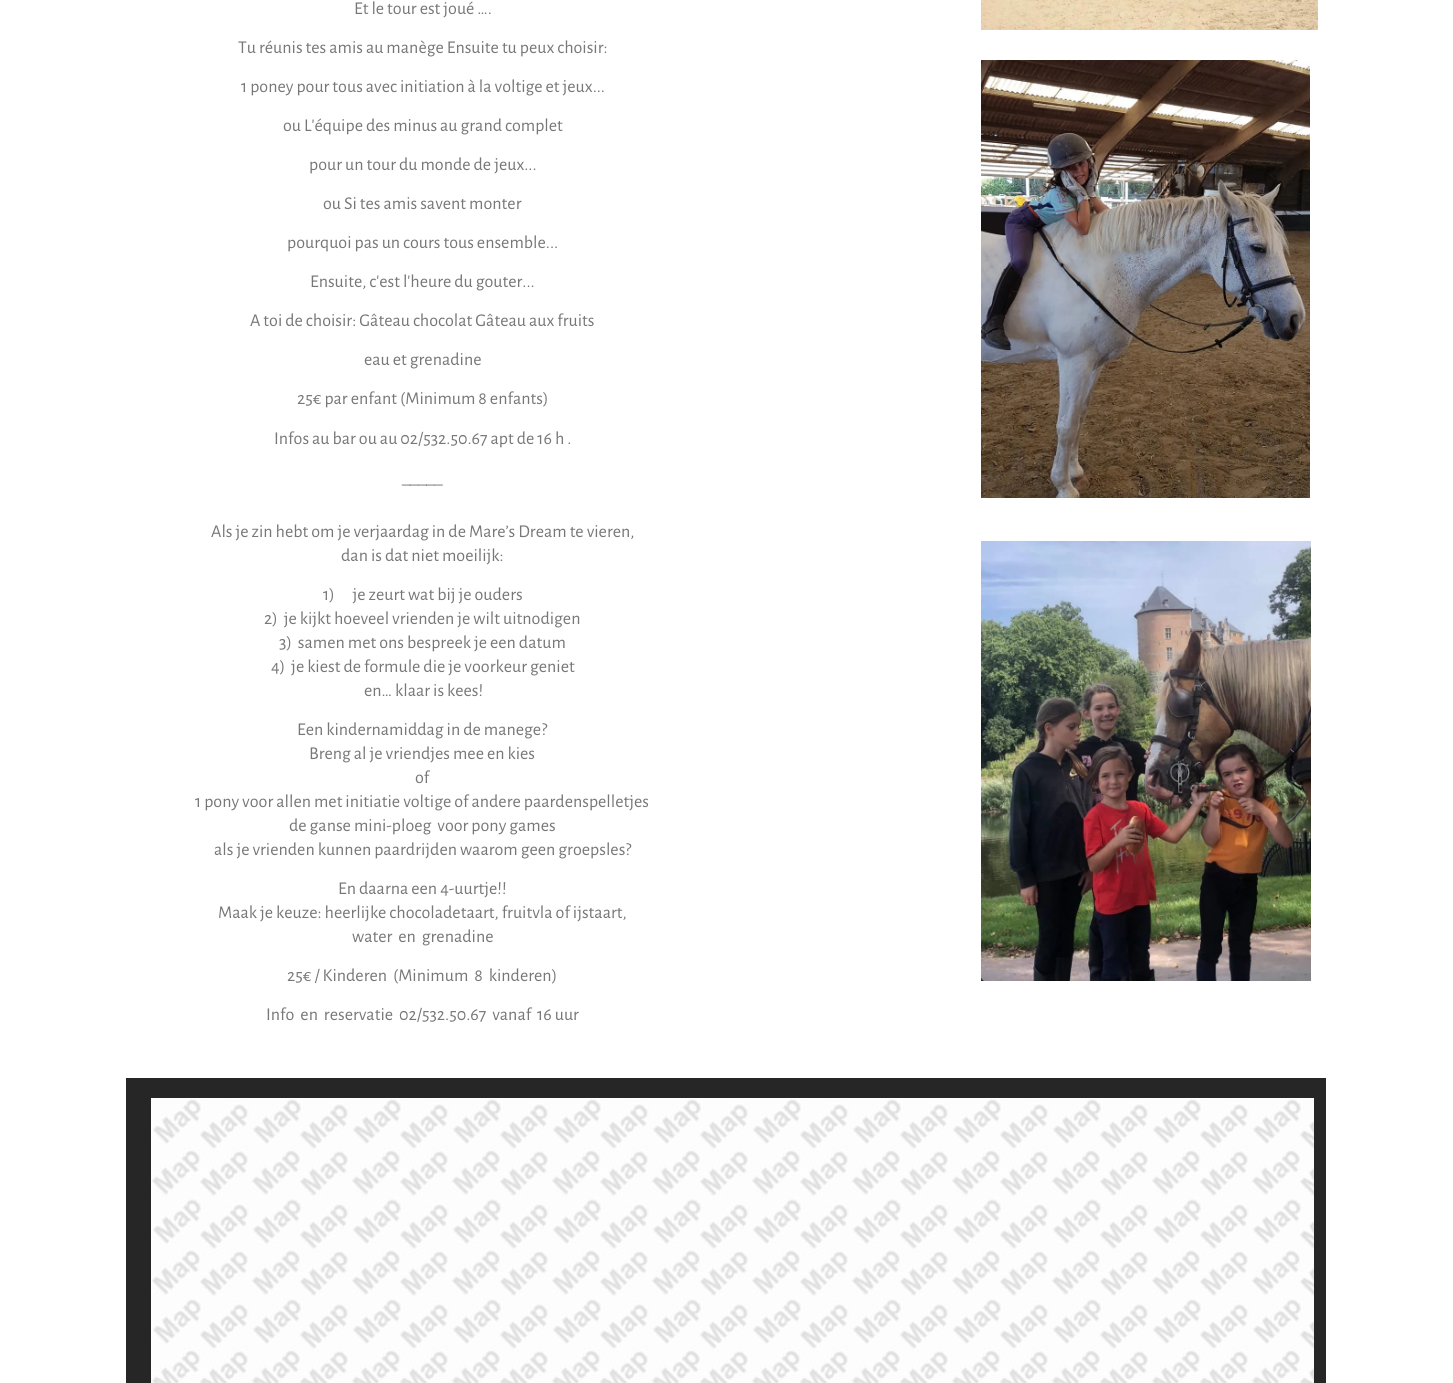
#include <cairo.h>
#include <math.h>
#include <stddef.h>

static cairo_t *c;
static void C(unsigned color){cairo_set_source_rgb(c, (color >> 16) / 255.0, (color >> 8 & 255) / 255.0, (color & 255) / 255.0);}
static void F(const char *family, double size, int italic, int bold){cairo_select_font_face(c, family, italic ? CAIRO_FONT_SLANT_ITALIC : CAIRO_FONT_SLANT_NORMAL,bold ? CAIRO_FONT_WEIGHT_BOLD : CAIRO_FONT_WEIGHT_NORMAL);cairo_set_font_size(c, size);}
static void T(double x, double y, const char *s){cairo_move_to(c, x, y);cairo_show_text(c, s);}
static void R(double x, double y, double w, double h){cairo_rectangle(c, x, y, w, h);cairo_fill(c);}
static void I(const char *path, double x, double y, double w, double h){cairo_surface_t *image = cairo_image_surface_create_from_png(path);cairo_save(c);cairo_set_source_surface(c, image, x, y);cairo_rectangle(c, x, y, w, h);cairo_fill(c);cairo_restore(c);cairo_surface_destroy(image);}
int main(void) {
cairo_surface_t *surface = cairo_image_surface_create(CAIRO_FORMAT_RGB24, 1453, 1383);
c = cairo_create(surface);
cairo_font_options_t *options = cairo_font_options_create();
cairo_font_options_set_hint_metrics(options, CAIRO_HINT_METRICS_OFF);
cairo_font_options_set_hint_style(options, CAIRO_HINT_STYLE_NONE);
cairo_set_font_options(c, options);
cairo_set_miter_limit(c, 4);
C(0xffffff);
cairo_paint(c);
F("Alegreya Sans",18,0,0);
C(0x777777);
T(354,14,"Et le tour est joué ….");
T(238,53,"Tu réunis tes amis au manège Ensuite tu peux choisir:");
T(241,92,"1 poney pour tous avec initiation à la voltige et jeux...");
T(283,131,"ou L'équipe des minus au grand complet");
T(309,170,"pour un tour du monde de jeux...");
T(323,209,"ou Si tes amis savent monter");
T(287,248,"pourquoi pas un cours tous ensemble...");
T(310,287,"Ensuite, c'est l'heure du gouter...");
T(250,326,"A toi de choisir: Gâteau chocolat Gâteau aux fruits");
T(364,365,"eau et grenadine");
T(297,404,"25€ par enfant (Minimum 8 enfants)");
T(274,444,"Infos au bar ou au 02/532.50.67 apt de 16 h .");
T(402,483,"_____");
T(211,537,"Als je zin hebt om je verjaardag in de Mare’s Dream te vieren,");
T(341,561,"dan is dat niet moeilijk:");
T(323,600,"1)      je zeurt wat bij je ouders");
T(264,624,"2)  je kijkt hoeveel vrienden je wilt uitnodigen");
T(279,648,"3)  samen met ons bespreek je een datum");
T(271,672,"4)  je kiest de formule die je voorkeur geniet");
T(364,696,"en… klaar is kees!");
T(297,735,"Een kindernamiddag in de manege?");
T(309,759,"Breng al je vriendjes mee en kies");
T(415,783,"of");
T(195,807,"1 pony voor allen met initiatie voltige of andere paardenspelletjes");
T(289,831,"de ganse mini-ploeg  voor pony games");
T(214,855,"als je vrienden kunnen paardrijden waarom geen groepsles?");
T(338,894,"En daarna een 4-uurtje!!");
T(218,918,"Maak je keuze: heerlijke chocoladetaart, fruitvla of ijstaart,");
T(352,942,"water  en  grenadine");
T(287,981,"25€ / Kinderen  (Minimum  8  kinderen)");
T(266,1020,"Info  en  reservatie  02/532.50.67  vanaf  16 uur");
I("1.png",981,0,337,30);
I("2.png",981,60,329,438);
I("3.png",981,541,330,440);
C(0x262626);
R(126,1078,1200,305);
C(0xffffff);
R(151,1098,1163,1);
I("4.png",151,1099,1163,284);
cairo_surface_write_to_png(surface, "o.png");
cairo_font_options_destroy(options);
cairo_destroy(c);
cairo_surface_destroy(surface);
return 0;
}
